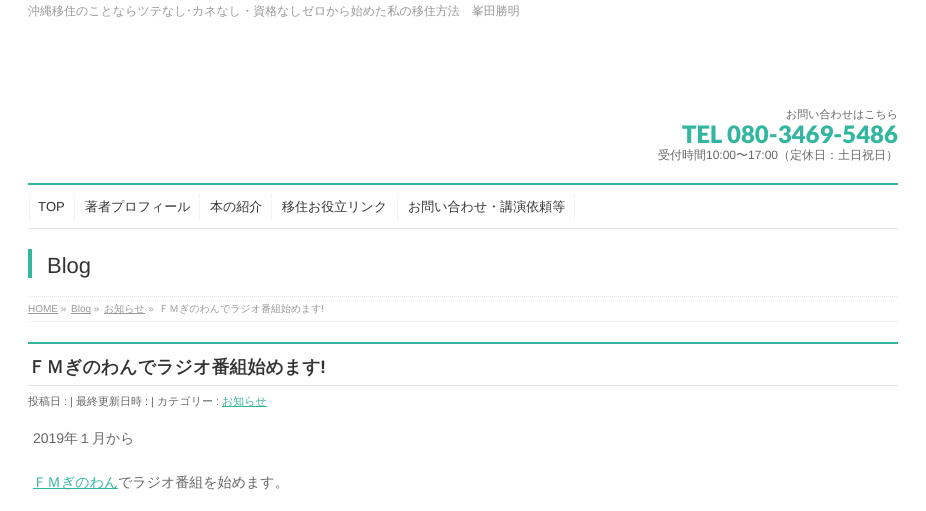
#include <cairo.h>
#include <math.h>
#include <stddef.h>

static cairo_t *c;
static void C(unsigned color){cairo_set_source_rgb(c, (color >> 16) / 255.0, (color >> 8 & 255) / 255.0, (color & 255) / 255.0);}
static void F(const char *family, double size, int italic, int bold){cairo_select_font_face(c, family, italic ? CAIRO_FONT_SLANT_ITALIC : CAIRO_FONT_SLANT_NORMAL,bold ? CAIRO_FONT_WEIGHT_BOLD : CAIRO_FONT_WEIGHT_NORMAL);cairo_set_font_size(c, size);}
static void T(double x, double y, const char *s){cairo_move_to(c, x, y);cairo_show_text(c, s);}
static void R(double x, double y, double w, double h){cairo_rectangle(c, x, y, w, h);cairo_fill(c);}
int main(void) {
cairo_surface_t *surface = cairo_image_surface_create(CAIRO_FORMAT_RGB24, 926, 511);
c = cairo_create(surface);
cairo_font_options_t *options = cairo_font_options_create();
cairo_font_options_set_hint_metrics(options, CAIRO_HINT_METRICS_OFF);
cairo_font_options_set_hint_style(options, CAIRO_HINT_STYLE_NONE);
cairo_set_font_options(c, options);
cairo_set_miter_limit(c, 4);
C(0xffffff);
cairo_paint(c);
F("WenQuanYi Zen Hei Medium",12,0,0);
C(0x999999);
T(28,15,"沖縄移住のことならツテなし");
F("IPAPGothic",12,0,0);
T(186,15,"･");
F("WenQuanYi Zen Hei Medium",12,0,0);
T(192,15,"カネなし・資格なしゼロから始めた私の移住方法　峯田勝明");
F("WenQuanYi Zen Hei Medium",11,0,0);
C(0x666666);
T(786,118,"お問い合わせはこちら");
F("Lato Black",24,0,0);
C(0x32b6a0);
T(682,143,"TEL 080-3469-5486");
F("WenQuanYi Zen Hei Medium",12,0,0);
C(0x666666);
T(658,159,"受付時間");
F("Liberation Sans",12,0,0);
T(706,159,"10:00");
F("WenQuanYi Zen Hei Medium",12,0,0);
T(736,159,"〜");
F("Liberation Sans",12,0,0);
T(748,159,"17:00");
F("WenQuanYi Zen Hei Medium",12,0,0);
T(778,159,"（定休日：土日祝日）");
C(0x32b6a0);
R(28,183,870,2);
C(0xe5e5e5);
R(28,228,870,1);
cairo_new_path(c);
cairo_move_to(c,29.5,194);
cairo_line_to(c,29.5,219);
cairo_set_line_width(c,1);
cairo_set_dash(c,(double[]){1,1},2,0);
cairo_stroke(c);
F("Liberation Sans",13,0,0);
C(0x333333);
T(38,211,"TOP");
cairo_new_path(c);
cairo_move_to(c,74.5,194);
cairo_line_to(c,74.5,219);
C(0xe5e5e5);
cairo_stroke(c);
F("WenQuanYi Zen Hei Medium",13,0,0);
C(0x333333);
T(85,211,"著者プロフィール");
cairo_new_path(c);
cairo_move_to(c,199.5,194);
cairo_line_to(c,199.5,219);
C(0xe5e5e5);
cairo_stroke(c);
C(0x333333);
T(210,211,"本の紹介");
cairo_new_path(c);
cairo_move_to(c,271.5,194);
cairo_line_to(c,271.5,219);
C(0xe5e5e5);
cairo_stroke(c);
C(0x333333);
T(282,211,"移住お役立リンク");
cairo_new_path(c);
cairo_move_to(c,397.5,194);
cairo_line_to(c,397.5,219);
C(0xe5e5e5);
cairo_stroke(c);
C(0x333333);
T(408,211,"お問い合わせ・講演依頼等");
cairo_new_path(c);
cairo_move_to(c,574.5,194);
cairo_line_to(c,574.5,219);
C(0xe5e5e5);
cairo_stroke(c);
C(0x32b6a0);
R(28,249,4,29);
F("Liberation Sans",22,0,0);
C(0x333333);
T(47,273,"Blog");
cairo_new_path(c);
cairo_move_to(c,28,296.5);
cairo_line_to(c,898,296.5);
C(0xe5e5e5);
cairo_stroke(c);
cairo_new_path(c);
cairo_move_to(c,28,321.5);
cairo_line_to(c,898,321.5);
cairo_stroke(c);
F("Liberation Sans",10,0,0);
C(0x999999);
T(28,312,"HOME »");
R(28,313,30,1);
R(71,313,20,1);
T(71,312,"Blog »");
R(104,313,41,1);
F("WenQuanYi Zen Hei Medium",10,0,0);
T(104,312,"お知らせ");
F("Liberation Sans",10,0,0);
T(148,312,"»");
F("WenQuanYi Zen Hei Medium",10,0,0);
T(159,312,"ＦＭぎのわんでラジオ番組始めます");
F("Liberation Sans",10,0,0);
T(321,312,"!");
C(0x32b6a0);
R(28,342,870,2);
C(0xe5e5e5);
R(28,385,870,1);
F("WenQuanYi Zen Hei",18,0,1);
C(0x333333);
T(28,373,"ＦＭぎのわんでラジオ番組始めます");
F("Liberation Sans",18,0,1);
T(320,373,"!");
F("WenQuanYi Zen Hei Medium",11,0,0);
C(0x666666);
T(28,405,"投稿日");
F("Liberation Sans",11,0,0);
T(64,405,": |");
F("WenQuanYi Zen Hei Medium",11,0,0);
T(76,405,"最終更新日時");
F("Liberation Sans",11,0,0);
T(145,405,": |");
F("WenQuanYi Zen Hei Medium",11,0,0);
T(157,405,"カテゴリー");
F("Liberation Sans",11,0,0);
T(216,405,":");
C(0x32b6a0);
R(222,406,45,1);
F("WenQuanYi Zen Hei Medium",11,0,0);
T(222,405,"お知らせ");
F("Liberation Sans",14,0,0);
C(0x666666);
T(33,443,"2019");
F("WenQuanYi Zen Hei Medium",14,0,0);
T(64,443,"年１月から");
C(0x32b6a0);
R(33,488,85,1);
T(33,487,"ＦＭぎのわん");
C(0x666666);
T(118,487,"でラジオ番組を始めます。");
cairo_surface_write_to_png(surface, "o.png");
cairo_font_options_destroy(options);
cairo_destroy(c);
cairo_surface_destroy(surface);
return 0;
}
